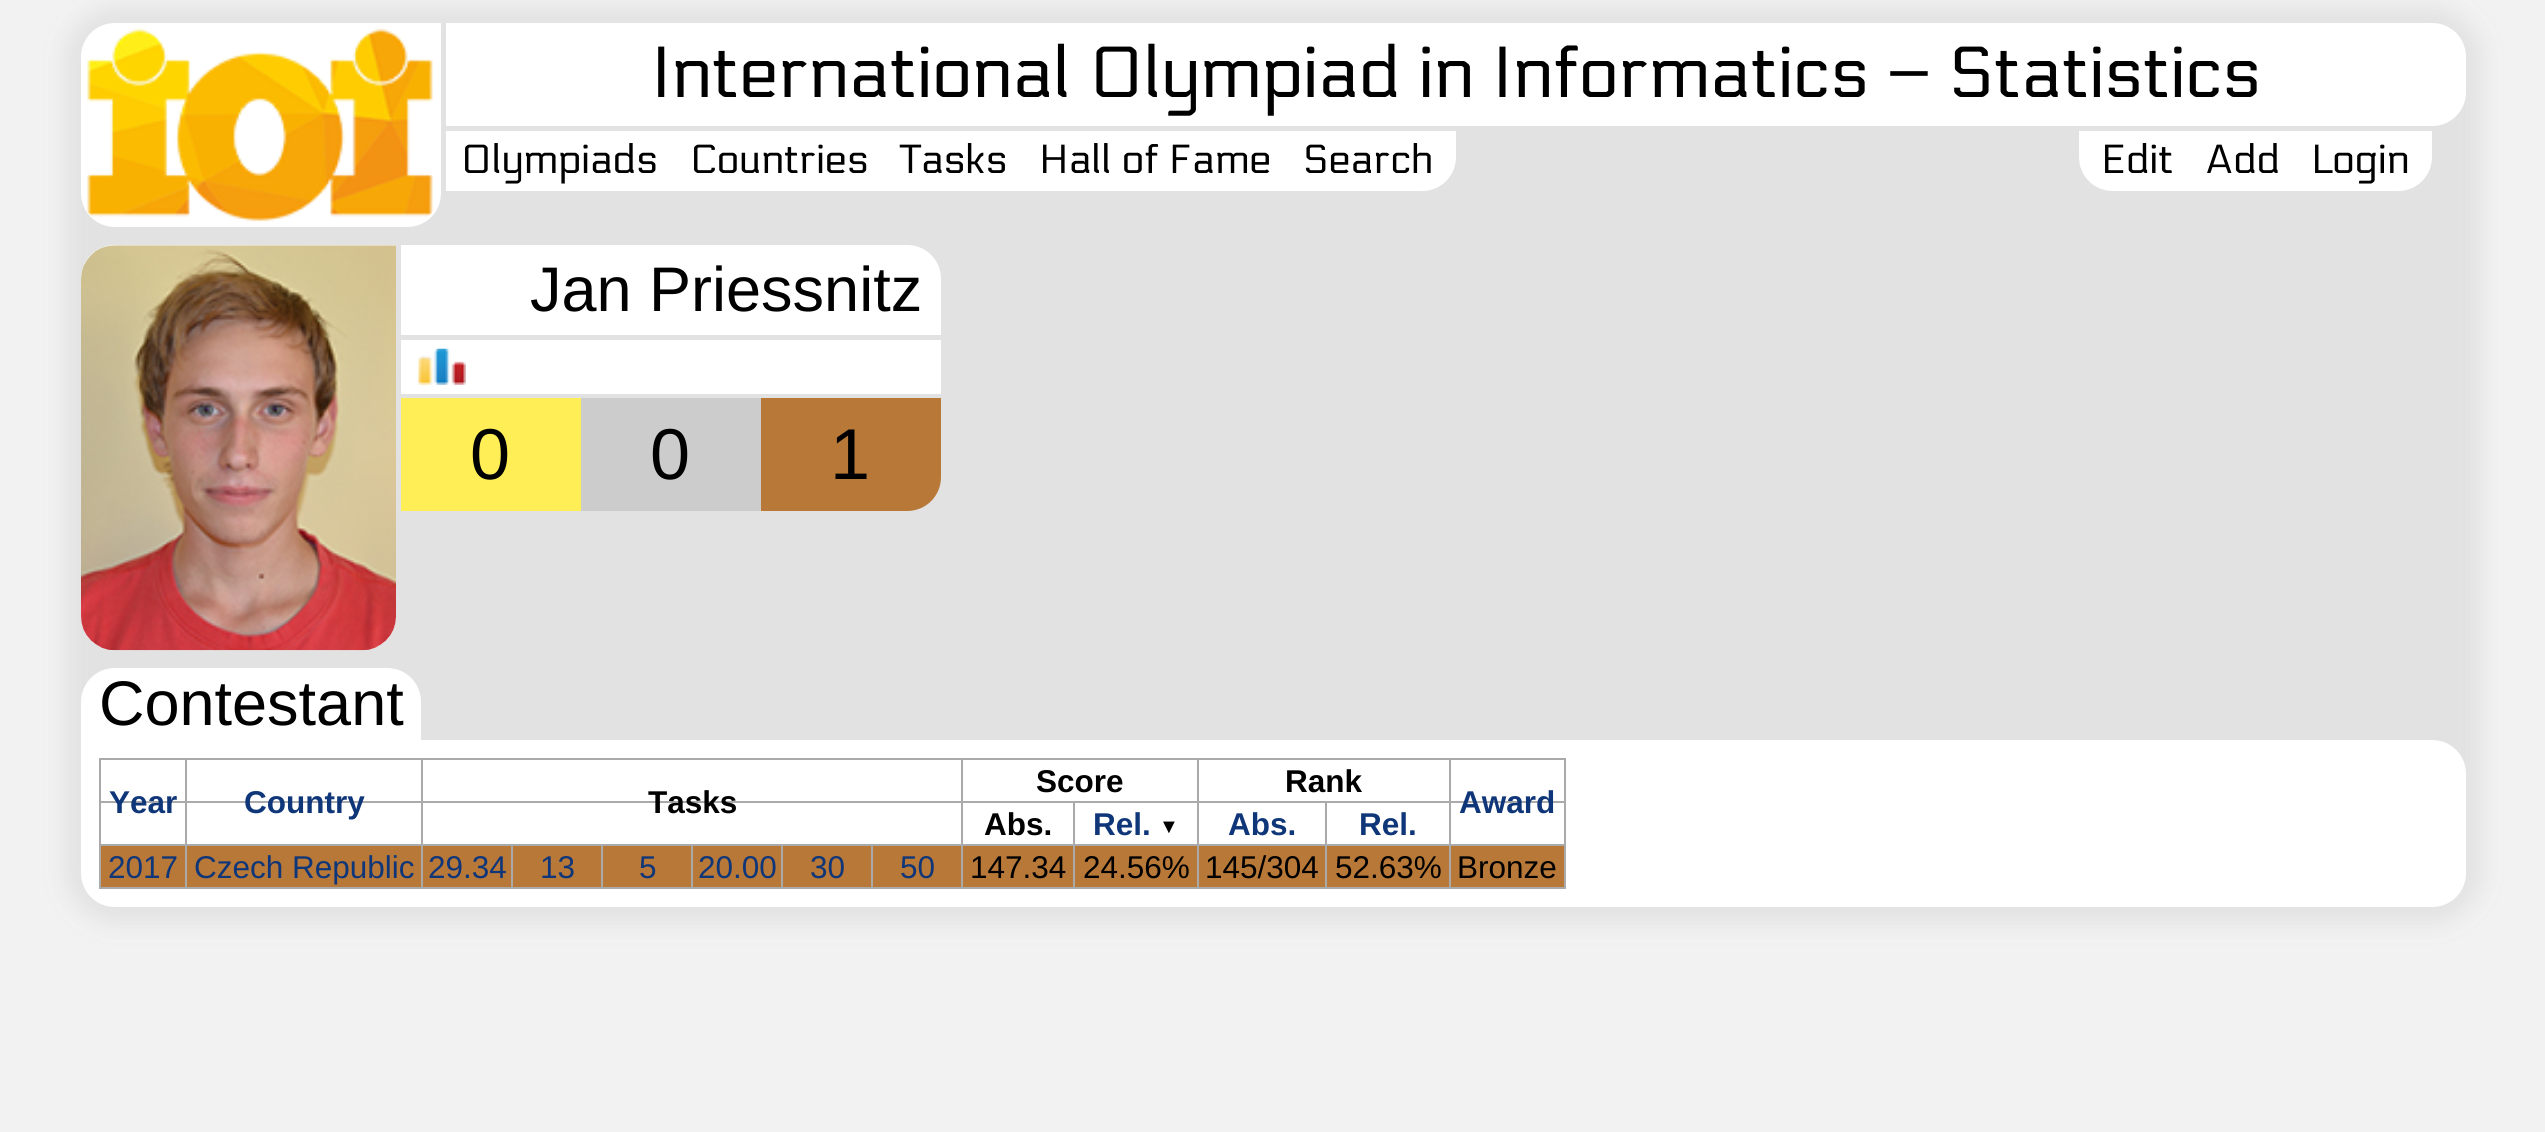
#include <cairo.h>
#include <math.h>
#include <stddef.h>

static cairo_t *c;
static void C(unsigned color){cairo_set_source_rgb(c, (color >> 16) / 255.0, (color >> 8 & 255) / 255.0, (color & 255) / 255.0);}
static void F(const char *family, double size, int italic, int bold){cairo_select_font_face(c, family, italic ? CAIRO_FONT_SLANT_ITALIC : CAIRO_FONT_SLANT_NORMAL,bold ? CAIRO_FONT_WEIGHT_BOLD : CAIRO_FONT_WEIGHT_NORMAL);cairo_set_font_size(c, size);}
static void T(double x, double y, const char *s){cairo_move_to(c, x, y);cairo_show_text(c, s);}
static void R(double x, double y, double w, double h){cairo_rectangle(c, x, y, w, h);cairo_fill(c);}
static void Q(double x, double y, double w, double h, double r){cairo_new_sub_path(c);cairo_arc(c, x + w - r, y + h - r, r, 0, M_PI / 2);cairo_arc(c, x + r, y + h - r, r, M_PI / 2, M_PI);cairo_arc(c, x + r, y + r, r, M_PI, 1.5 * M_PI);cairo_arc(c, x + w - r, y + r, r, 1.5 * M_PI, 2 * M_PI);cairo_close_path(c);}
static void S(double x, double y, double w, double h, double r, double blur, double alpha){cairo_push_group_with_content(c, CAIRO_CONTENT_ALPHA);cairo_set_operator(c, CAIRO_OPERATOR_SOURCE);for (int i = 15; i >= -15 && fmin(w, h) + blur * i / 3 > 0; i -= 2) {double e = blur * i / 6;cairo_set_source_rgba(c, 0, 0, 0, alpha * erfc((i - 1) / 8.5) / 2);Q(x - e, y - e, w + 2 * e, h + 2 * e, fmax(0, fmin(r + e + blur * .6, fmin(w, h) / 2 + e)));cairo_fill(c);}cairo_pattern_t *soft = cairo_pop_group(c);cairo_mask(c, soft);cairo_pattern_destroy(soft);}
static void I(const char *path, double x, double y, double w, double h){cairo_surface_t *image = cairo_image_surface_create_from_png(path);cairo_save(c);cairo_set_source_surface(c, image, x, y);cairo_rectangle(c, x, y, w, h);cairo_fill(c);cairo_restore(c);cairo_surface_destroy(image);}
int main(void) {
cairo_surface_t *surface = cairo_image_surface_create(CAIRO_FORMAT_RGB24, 2545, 1132);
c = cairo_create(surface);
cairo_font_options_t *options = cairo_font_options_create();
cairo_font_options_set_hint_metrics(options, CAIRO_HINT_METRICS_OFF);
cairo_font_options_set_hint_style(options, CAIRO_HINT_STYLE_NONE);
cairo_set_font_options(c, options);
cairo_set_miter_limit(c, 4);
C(0xf2f2f2);
cairo_paint(c);
C(0xe2e2e2);
S(65,7,2417,916,50,11,1);
C(0xffffff);
cairo_new_path(c);
cairo_move_to(c,115,23);
cairo_line_to(c,441,23);
cairo_line_to(c,441,193);
cairo_curve_to(c,441,212,426,227,407,227);
cairo_line_to(c,115,227);
cairo_curve_to(c,96,227,81,212,81,193);
cairo_line_to(c,81,57);
cairo_curve_to(c,81,38,96,23,115,23);
cairo_close_path(c);
cairo_fill(c);
I("1.png",87,28,346,194);
cairo_new_path(c);
cairo_move_to(c,446,23);
cairo_line_to(c,2432,23);
cairo_curve_to(c,2451,23,2466,38,2466,57);
cairo_line_to(c,2466,92);
cairo_curve_to(c,2466,111,2451,126,2432,126);
cairo_line_to(c,446,126);
cairo_close_path(c);
cairo_fill(c);
F("Electrolize",72,0,0);
C(0x000000);
T(651,97,"International Olympiad in Informatics – Statistics");
C(0xffffff);
R(446,131,841,60);
F("Electrolize",40.5,0,0);
C(0x000000);
T(461,173,"Olympiads");
T(690,173,"Countries");
T(900,173,"Tasks");
T(1039,173,"Hall of Fame");
C(0xffffff);
cairo_new_path(c);
cairo_move_to(c,1287,131);
cairo_line_to(c,1456,131);
cairo_line_to(c,1456,157);
cairo_curve_to(c,1456,176,1441,191,1422,191);
cairo_line_to(c,1287,191);
cairo_close_path(c);
cairo_fill(c);
C(0x000000);
T(1303,173,"Search");
C(0xffffff);
cairo_new_path(c);
cairo_move_to(c,2079,131);
cairo_line_to(c,2189,131);
cairo_line_to(c,2189,191);
cairo_line_to(c,2113,191);
cairo_curve_to(c,2094,191,2079,176,2079,157);
cairo_close_path(c);
cairo_fill(c);
C(0x000000);
T(2101,173,"Edit");
C(0xffffff);
R(2189,131,106,60);
C(0x000000);
T(2205,173,"Add");
C(0xffffff);
cairo_new_path(c);
cairo_move_to(c,2295,131);
cairo_line_to(c,2432,131);
cairo_line_to(c,2432,157);
cairo_curve_to(c,2432,176,2417,191,2398,191);
cairo_line_to(c,2295,191);
cairo_close_path(c);
cairo_fill(c);
C(0x000000);
T(2311,173,"Login");
C(0xffffff);
cairo_new_path(c);
cairo_move_to(c,115,245);
cairo_line_to(c,396,245);
cairo_line_to(c,396,616);
cairo_curve_to(c,396,635,381,650,362,650);
cairo_line_to(c,115,650);
cairo_curve_to(c,96,650,81,635,81,616);
cairo_line_to(c,81,279);
cairo_curve_to(c,81,260,96,245,115,245);
cairo_close_path(c);
cairo_fill(c);
I("2.png",81,245,315,406);
cairo_new_path(c);
cairo_move_to(c,401,245);
cairo_line_to(c,907,245);
cairo_curve_to(c,926,245,941,260,941,279);
cairo_line_to(c,941,335);
cairo_line_to(c,401,335);
cairo_close_path(c);
cairo_fill(c);
F("Liberation Sans",63,0,0);
C(0x000000);
T(530,311,"Jan Priessnitz");
C(0xffffff);
R(401,340,540,54);
I("3.png",418,348,48,37);
C(0xffee55);
R(401,398,180,113);
F("Liberation Sans",72,0,0);
C(0x000000);
T(470,479,"0");
C(0xcccccc);
R(581,398,180,113);
C(0x000000);
T(650,479,"0");
C(0xb87838);
cairo_new_path(c);
cairo_move_to(c,761,398);
cairo_line_to(c,941,398);
cairo_line_to(c,941,477);
cairo_curve_to(c,941,496,926,511,907,511);
cairo_line_to(c,761,511);
cairo_close_path(c);
cairo_fill(c);
C(0x000000);
T(830,479,"1");
C(0xffffff);
cairo_new_path(c);
cairo_move_to(c,115,668);
cairo_line_to(c,387,668);
cairo_curve_to(c,406,668,421,683,421,702);
cairo_line_to(c,421,740);
cairo_line_to(c,81,740);
cairo_line_to(c,81,702);
cairo_curve_to(c,81,683,96,668,115,668);
cairo_close_path(c);
cairo_fill(c);
F("Liberation Sans",63,0,0);
C(0x000000);
T(99,725,"Contestant");
C(0xffffff);
cairo_new_path(c);
cairo_move_to(c,81,740);
cairo_line_to(c,2432,740);
cairo_curve_to(c,2451,740,2466,755,2466,774);
cairo_line_to(c,2466,873);
cairo_curve_to(c,2466,892,2451,907,2432,907);
cairo_line_to(c,115,907);
cairo_curve_to(c,96,907,81,892,81,873);
cairo_close_path(c);
cairo_fill(c);
C(0xaaaaaa);
R(99,758,1467,2);
R(1564,758,2,131);
R(99,887,1467,2);
R(99,758,2,131);
F("Liberation Sans",31.5,0,1);
C(0x000000);
T(1036,792,"Score");
T(1285,792,"Rank");
C(0xaaaaaa);
R(99,801,1467,2);
C(0x0f3678);
T(109,813,"Year");
T(244,813,"Country");
C(0x000000);
T(648,813,"Tasks");
C(0x0f3678);
T(1459,813,"Award");
C(0x000000);
T(984,835,"Abs.");
C(0x0f3678);
T(1093,835,"Rel.");
F("Liberation Sans",20,0,1);
C(0x000000);
T(1159,833,"▼");
F("Liberation Sans",31.5,0,1);
C(0x0f3678);
T(1228,835,"Abs.");
T(1359,835,"Rel.");
C(0xaaaaaa);
R(99,844,1467,2);
C(0xb87838);
R(101,846,84,41);
F("Liberation Sans",31.5,0,0);
C(0x0f3678);
T(108,878,"2017");
C(0xb87838);
R(187,846,234,41);
C(0xaaaaaa);
R(185,758,2,131);
C(0x0f3678);
T(194,878,"Czech Republic");
C(0xb87838);
R(423,846,88,41);
C(0xaaaaaa);
R(421,758,2,131);
C(0x0f3678);
T(428,878,"29.34");
C(0xb87838);
R(513,846,88,41);
C(0xaaaaaa);
R(511,844,2,45);
C(0x0f3678);
T(540,878,"13");
C(0xb87838);
R(603,846,88,41);
C(0xaaaaaa);
R(601,844,2,45);
C(0x0f3678);
T(639,878,"5");
C(0xb87838);
R(693,846,88,41);
C(0xaaaaaa);
R(691,844,2,45);
C(0x0f3678);
T(698,878,"20.00");
C(0xb87838);
R(783,846,88,41);
C(0xaaaaaa);
R(781,844,2,45);
C(0x0f3678);
T(810,878,"30");
C(0xb87838);
R(873,846,88,41);
C(0xaaaaaa);
R(871,844,2,45);
C(0x0f3678);
T(900,878,"50");
C(0xb87838);
R(963,846,234,41);
C(0xaaaaaa);
R(961,758,2,131);
C(0x000000);
T(970,878,"147.34");
C(0xaaaaaa);
R(1073,801,2,88);
C(0x000000);
T(1083,878,"24.56%");
C(0xb87838);
R(1199,846,250,41);
C(0xaaaaaa);
R(1197,758,2,131);
C(0x000000);
T(1205,878,"145/304");
C(0xaaaaaa);
R(1325,801,2,88);
C(0x000000);
T(1335,878,"52.63%");
C(0xb87838);
R(1451,846,113,41);
C(0xaaaaaa);
R(1449,758,2,131);
C(0x000000);
T(1457,878,"Bronze");
cairo_surface_write_to_png(surface, "o.png");
cairo_font_options_destroy(options);
cairo_destroy(c);
cairo_surface_destroy(surface);
return 0;
}
